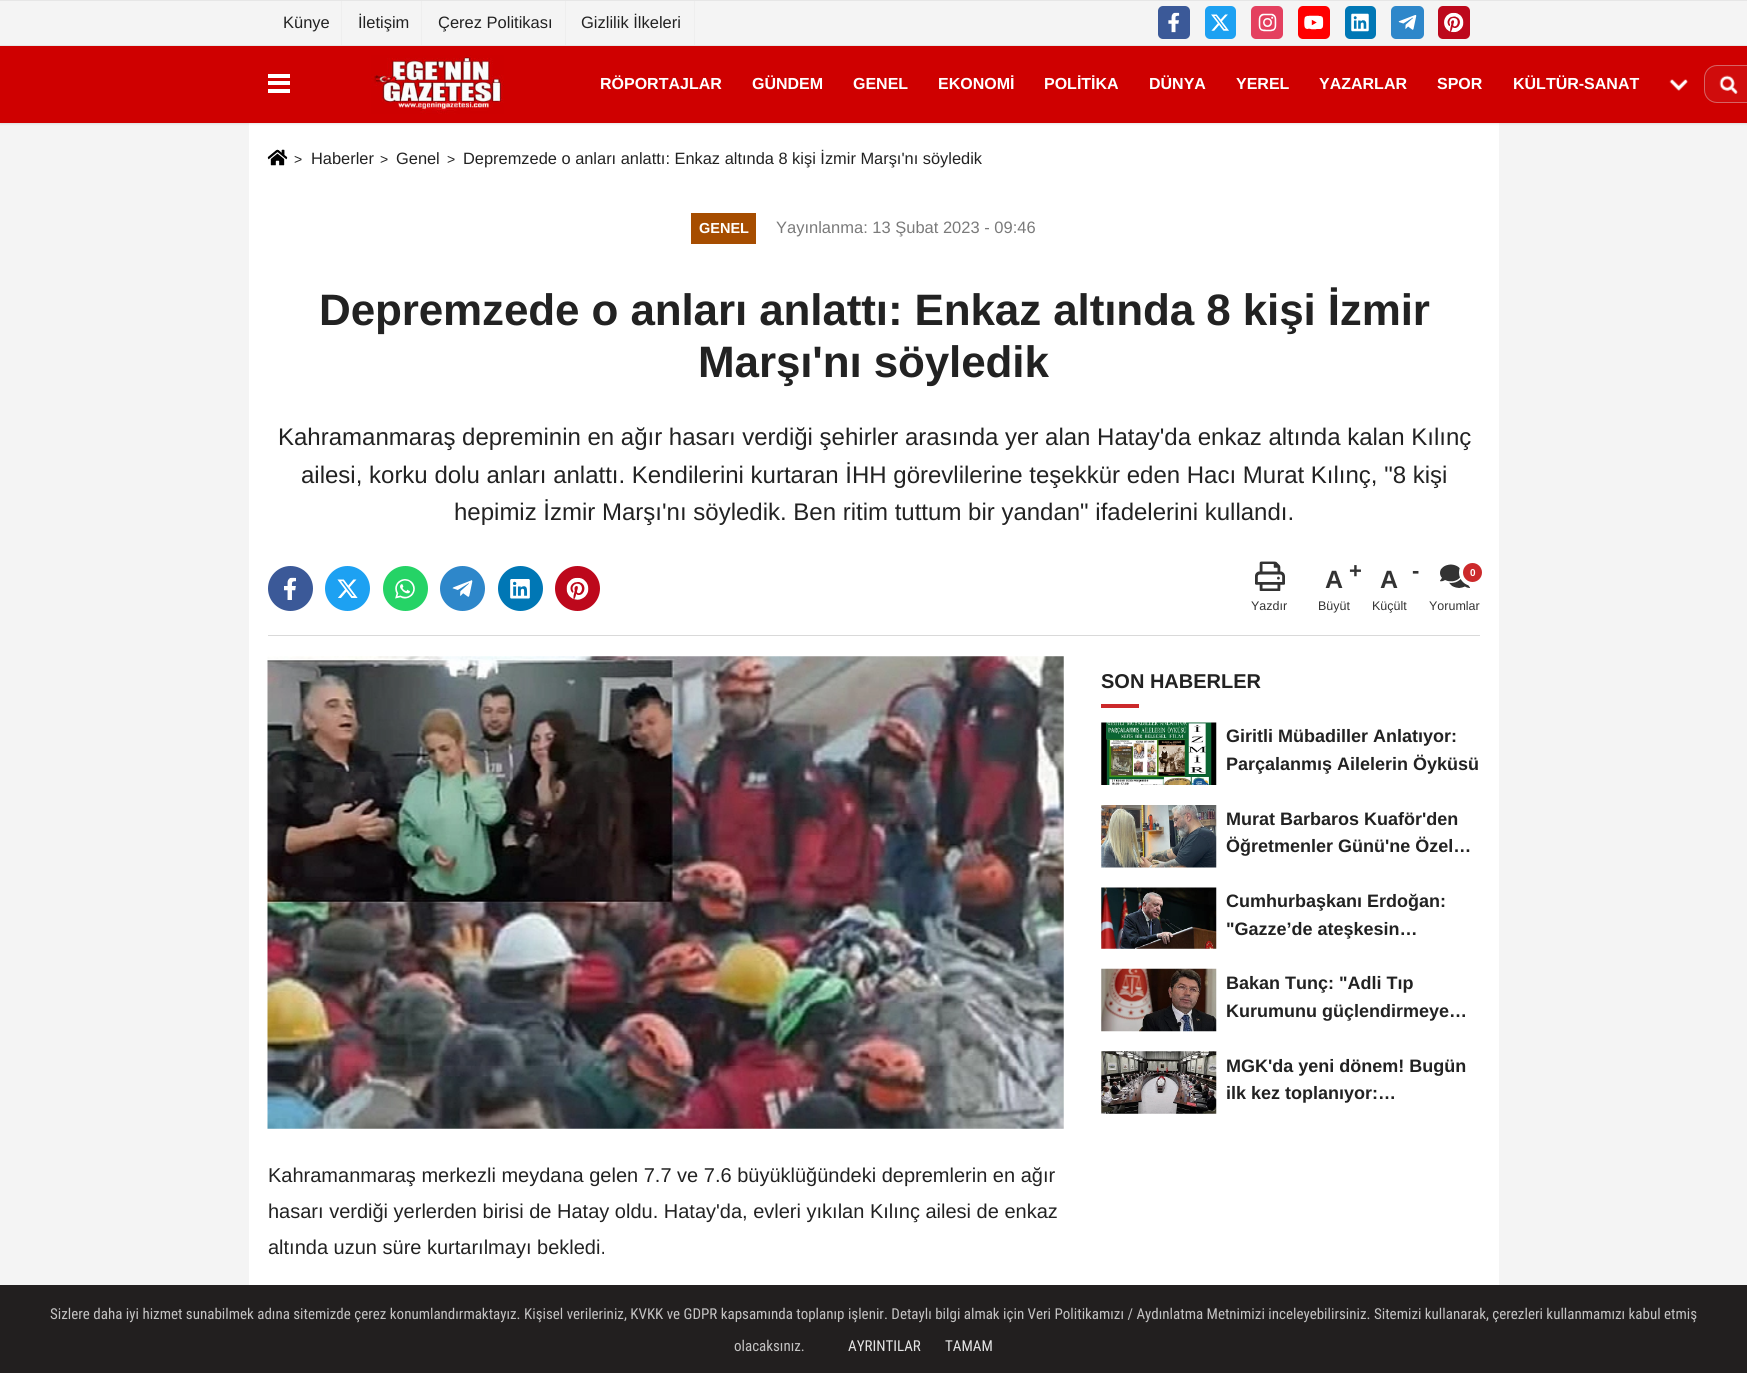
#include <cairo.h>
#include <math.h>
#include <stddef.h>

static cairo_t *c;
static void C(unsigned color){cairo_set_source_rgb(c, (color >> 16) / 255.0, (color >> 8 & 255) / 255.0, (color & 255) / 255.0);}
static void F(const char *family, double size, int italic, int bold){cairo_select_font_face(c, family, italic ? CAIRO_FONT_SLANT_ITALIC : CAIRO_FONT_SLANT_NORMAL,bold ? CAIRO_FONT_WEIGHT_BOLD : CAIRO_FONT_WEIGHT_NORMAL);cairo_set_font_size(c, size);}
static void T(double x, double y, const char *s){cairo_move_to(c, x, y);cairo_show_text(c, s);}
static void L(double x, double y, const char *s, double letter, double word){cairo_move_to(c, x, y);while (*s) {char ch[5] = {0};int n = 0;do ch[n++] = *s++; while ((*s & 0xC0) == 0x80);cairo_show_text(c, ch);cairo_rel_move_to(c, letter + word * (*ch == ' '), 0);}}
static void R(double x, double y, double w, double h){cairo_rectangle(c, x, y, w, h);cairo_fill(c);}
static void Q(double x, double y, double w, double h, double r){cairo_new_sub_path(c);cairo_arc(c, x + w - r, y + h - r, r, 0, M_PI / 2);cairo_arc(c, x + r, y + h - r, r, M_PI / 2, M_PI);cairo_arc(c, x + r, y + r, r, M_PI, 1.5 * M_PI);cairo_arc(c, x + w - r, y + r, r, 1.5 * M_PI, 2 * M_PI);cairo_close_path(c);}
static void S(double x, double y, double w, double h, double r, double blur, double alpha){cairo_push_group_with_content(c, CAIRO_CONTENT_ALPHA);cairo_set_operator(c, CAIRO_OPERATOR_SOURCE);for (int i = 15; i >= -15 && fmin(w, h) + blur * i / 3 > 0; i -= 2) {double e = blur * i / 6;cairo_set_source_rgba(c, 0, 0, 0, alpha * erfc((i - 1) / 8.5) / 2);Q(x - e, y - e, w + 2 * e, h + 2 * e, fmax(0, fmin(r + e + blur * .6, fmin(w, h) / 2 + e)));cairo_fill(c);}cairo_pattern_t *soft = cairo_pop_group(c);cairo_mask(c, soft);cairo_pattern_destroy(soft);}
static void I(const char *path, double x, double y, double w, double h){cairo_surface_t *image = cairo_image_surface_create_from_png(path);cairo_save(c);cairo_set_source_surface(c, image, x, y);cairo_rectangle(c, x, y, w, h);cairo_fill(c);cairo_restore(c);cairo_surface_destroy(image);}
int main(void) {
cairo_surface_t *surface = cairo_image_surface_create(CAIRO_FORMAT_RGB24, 1747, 1373);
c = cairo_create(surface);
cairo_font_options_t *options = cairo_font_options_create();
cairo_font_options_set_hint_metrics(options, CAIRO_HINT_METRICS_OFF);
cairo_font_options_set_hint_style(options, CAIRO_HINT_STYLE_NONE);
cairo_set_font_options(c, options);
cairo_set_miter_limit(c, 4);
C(0xf4f4f4);
cairo_paint(c);
C(0x221f1f);
R(0,1285,1747,88);
C(0xe6e6e6);
R(0,0,1747,1);
C(0xeeeeee);
R(341,1,1,44);
F("Liberation Sans",16.5,0,0);
C(0x222222);
T(283,28,"Künye");
C(0xeeeeee);
R(421,1,1,44);
C(0x222222);
T(358,28,"İletişim");
C(0xeeeeee);
R(565,1,1,44);
C(0x222222);
T(438,28,"Çerez Politikası");
C(0xeeeeee);
R(694,1,1,44);
C(0x222222);
T(581,28,"Gizlilik İlkeleri");
C(0x3b5998);
Q(1158,6,32,33,5);
cairo_fill(c);
I("1.png",1168,12,12,21);
C(0x1da1f2);
Q(1205,6,31,33,5);
cairo_fill(c);
I("2.png",1211,14,18,17);
C(0xe4405f);
Q(1251,6,32,33,5);
cairo_fill(c);
I("3.png",1258,13,19,19);
C(0xff0000);
Q(1298,6,32,33,5);
cairo_fill(c);
I("4.png",1304,15,20,15);
C(0x0077b5);
Q(1345,6,31,33,5);
cairo_fill(c);
I("5.png",1351,13,18,19);
C(0x2e87ca);
Q(1391,6,33,33,5);
cairo_fill(c);
I("6.png",1398,15,19,15);
C(0xbd081c);
Q(1438,6,32,33,5);
cairo_fill(c);
I("7.png",1444,12,20,21);
C(0xe6e6e6);
R(0,45,1747,1);
C(0xffffff);
R(249,123,1250,1162);
C(0x000000);
S(0,48,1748,76,0,1,.1);
C(0xcf0000);
R(0,46,1747,77);
C(0xffffff);
R(268,74,22,4);
R(268,81,22,4);
R(268,89,22,4);
I("8.png",371,55,133,59);
F("Liberation Sans",16,0,1);
T(600,89,"RÖPORTAJLAR");
T(752,89,"GÜNDEM");
T(853,89,"GENEL");
T(938,89,"EKONOMİ");
T(1044,89,"POLİTİKA");
T(1149,89,"DÜNYA");
T(1236,89,"YEREL");
T(1319,89,"YAZARLAR");
T(1437,89,"SPOR");
T(1513,89,"KÜLTÜR-SANAT");
I("9.png",1669,79,19,12);
C(0xd00c0c);
Q(1704,65,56,38,13);
cairo_fill(c);
Q(1704.5,65.5,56,37,12.5);
cairo_set_source_rgba(c,0.867,0.867,0.867,0.42);
cairo_set_line_width(c,1);
cairo_stroke(c);
I("10.png",1719,75,19,19);
I("11.png",267,149,21,17);
F("Liberation Sans",14,0,0);
C(0x222222);
T(294,164,">");
F("Liberation Sans",16.4,0,0);
T(311,164,"Haberler");
F("Liberation Sans",14,0,0);
T(380,164,">");
F("Liberation Sans",16.4,0,0);
T(396,164,"Genel");
F("Liberation Sans",14,0,0);
T(447,164,">");
F("Liberation Sans",16.4,0,0);
T(463,164,"Depremzede o anları anlattı: Enkaz altında 8 kişi İzmir Marşı'nı söyledik");
C(0xa64d00);
R(691,213,65,31);
F("Liberation Sans",14.5,0,1);
C(0xffffff);
T(699,233,"GENEL");
F("Liberation Sans",16.5,0,0);
C(0x7a7a7a);
T(776,233,"Yayınlanma: 13 Şubat 2023 - 09:46");
F("Liberation Sans",44,0,1);
C(0x222222);
L(319,325,"Depremzede o anları anlattı: Enkaz altında 8 kişi İzmir",-.12,0);
L(698,377,"Marşı'nı söyledik",-.12,0);
F("Liberation Sans",24,0,0);
T(278,445,"Kahramanmaraş depreminin en ağır hasarı verdiği şehirler arasında yer alan Hatay'da enkaz altında kalan Kılınç");
T(301,483,"ailesi, korku dolu anları anlattı. Kendilerini kurtaran İHH görevlilerine teşekkür eden Hacı Murat Kılınç, \"8 kişi");
T(454,520,"hepimiz İzmir Marşı'nı söyledik. Ben ritim tuttum bir yandan\" ifadelerini kullandı.");
C(0x3b5998);
cairo_new_path(c);
cairo_arc(c,290.5,588.5,22.5,0,2 * M_PI);
cairo_fill(c);
I("12.png",284,577,12,23);
C(0x1da1f2);
cairo_arc(c,347.5,588.5,22.5,0,2 * M_PI);
cairo_fill(c);
I("13.png",337,579,21,19);
C(0x25d366);
cairo_arc(c,405.5,588.5,22.5,0,2 * M_PI);
cairo_fill(c);
I("14.png",395,579,20,20);
C(0x2e87ca);
cairo_arc(c,462.5,588.5,22.5,0,2 * M_PI);
cairo_fill(c);
I("15.png",452,580,21,17);
C(0x0077b5);
cairo_arc(c,520.5,588.5,22.5,0,2 * M_PI);
cairo_fill(c);
I("16.png",510,579,20,20);
C(0xbd081c);
cairo_arc(c,577.5,588.5,22.5,0,2 * M_PI);
cairo_fill(c);
I("17.png",566,577,23,23);
I("18.png",1255,561,30,30);
F("Liberation Sans",12.5,0,0);
C(0x333333);
T(1251,610,"Yazdır");
F("Liberation Sans",25,0,1);
T(1325,588,"A");
F("Liberation Sans",22,0,1);
T(1349,578,"+");
F("Liberation Sans",12.5,0,0);
T(1318,610,"Büyüt");
F("Liberation Sans",25,0,1);
T(1380,588,"A");
F("Liberation Sans",22,0,1);
T(1412,578,"-");
F("Liberation Sans",12.5,0,0);
T(1372,610,"Küçült");
I("19.png",1440,564,30,24);
C(0xcc292b);
cairo_arc(c,1472.5,572.5,11.5,0,2 * M_PI);
cairo_fill_preserve(c);
C(0xffffff);
cairo_set_line_width(c,4);
cairo_stroke(c);
F("Liberation Sans",10,0,1);
T(1470,576,"0");
F("Liberation Sans",12.5,0,0);
C(0x333333);
T(1429,610,"Yorumlar");
C(0xd9d9d9);
R(268,635,1212,1);
F("Liberation Sans",20,0,1);
C(0x222222);
T(1101,688,"SON HABERLER");
C(0xcc292b);
R(1101,704,38,4);
I("20.png",1101,722,116,63);
F("Liberation Sans",18,0,1);
C(0x222222);
T(1226,742,"Giritli Mübadiller Anlatıyor:");
T(1226,770,"Parçalanmış Ailelerin Öyküsü");
I("21.png",1101,805,116,63);
T(1226,825,"Murat Barbaros Kuaför'den");
T(1226,852,"Öğretmenler Günü'ne Özel…");
I("22.png",1101,887,116,62);
T(1226,907,"Cumhurbaşkanı Erdoğan:");
T(1226,935,"\"Gazze’de ateşkesin…");
I("23.png",1101,968,116,64);
T(1226,989,"Bakan Tunç: \"Adli Tıp");
T(1226,1017,"Kurumunu güçlendirmeye…");
I("24.png",1101,1051,116,63);
T(1226,1072,"MGK'da yeni dönem! Bugün");
T(1226,1099,"ilk kez toplanıyor:…");
I("25.png",267,656,797,473);
F("Liberation Sans",20,0,0);
T(268,1182,"Kahramanmaraş merkezli meydana gelen 7.7 ve 7.6 büyüklüğündeki depremlerin en ağır");
T(268,1218,"hasarı verdiği yerlerden birisi de Hatay oldu. Hatay'da, evleri yıkılan Kılınç ailesi de enkaz");
T(268,1254,"altında uzun süre kurtarılmayı bekledi.");
F("Roboto Condensed",15,0,0);
C(0xc4c3c3);
T(50,1319,"Sizlere daha iyi hizmet sunabilmek adına sitemizde çerez konumlandırmaktayız. Kişisel verileriniz, KVKK ve GDPR kapsamında toplanıp işlenir. Detaylı bilgi almak için Veri Politikamızı / Aydınlatma Metnimizi inceleyebilirsiniz. Sitemizi kullanarak, çerezleri kullanmamızı kabul etmiş");
T(734,1351,"olacaksınız.");
C(0xe4e4e4);
T(848,1351,"AYRINTILAR");
T(945,1351,"TAMAM");
cairo_surface_write_to_png(surface, "o.png");
cairo_font_options_destroy(options);
cairo_destroy(c);
cairo_surface_destroy(surface);
return 0;
}
